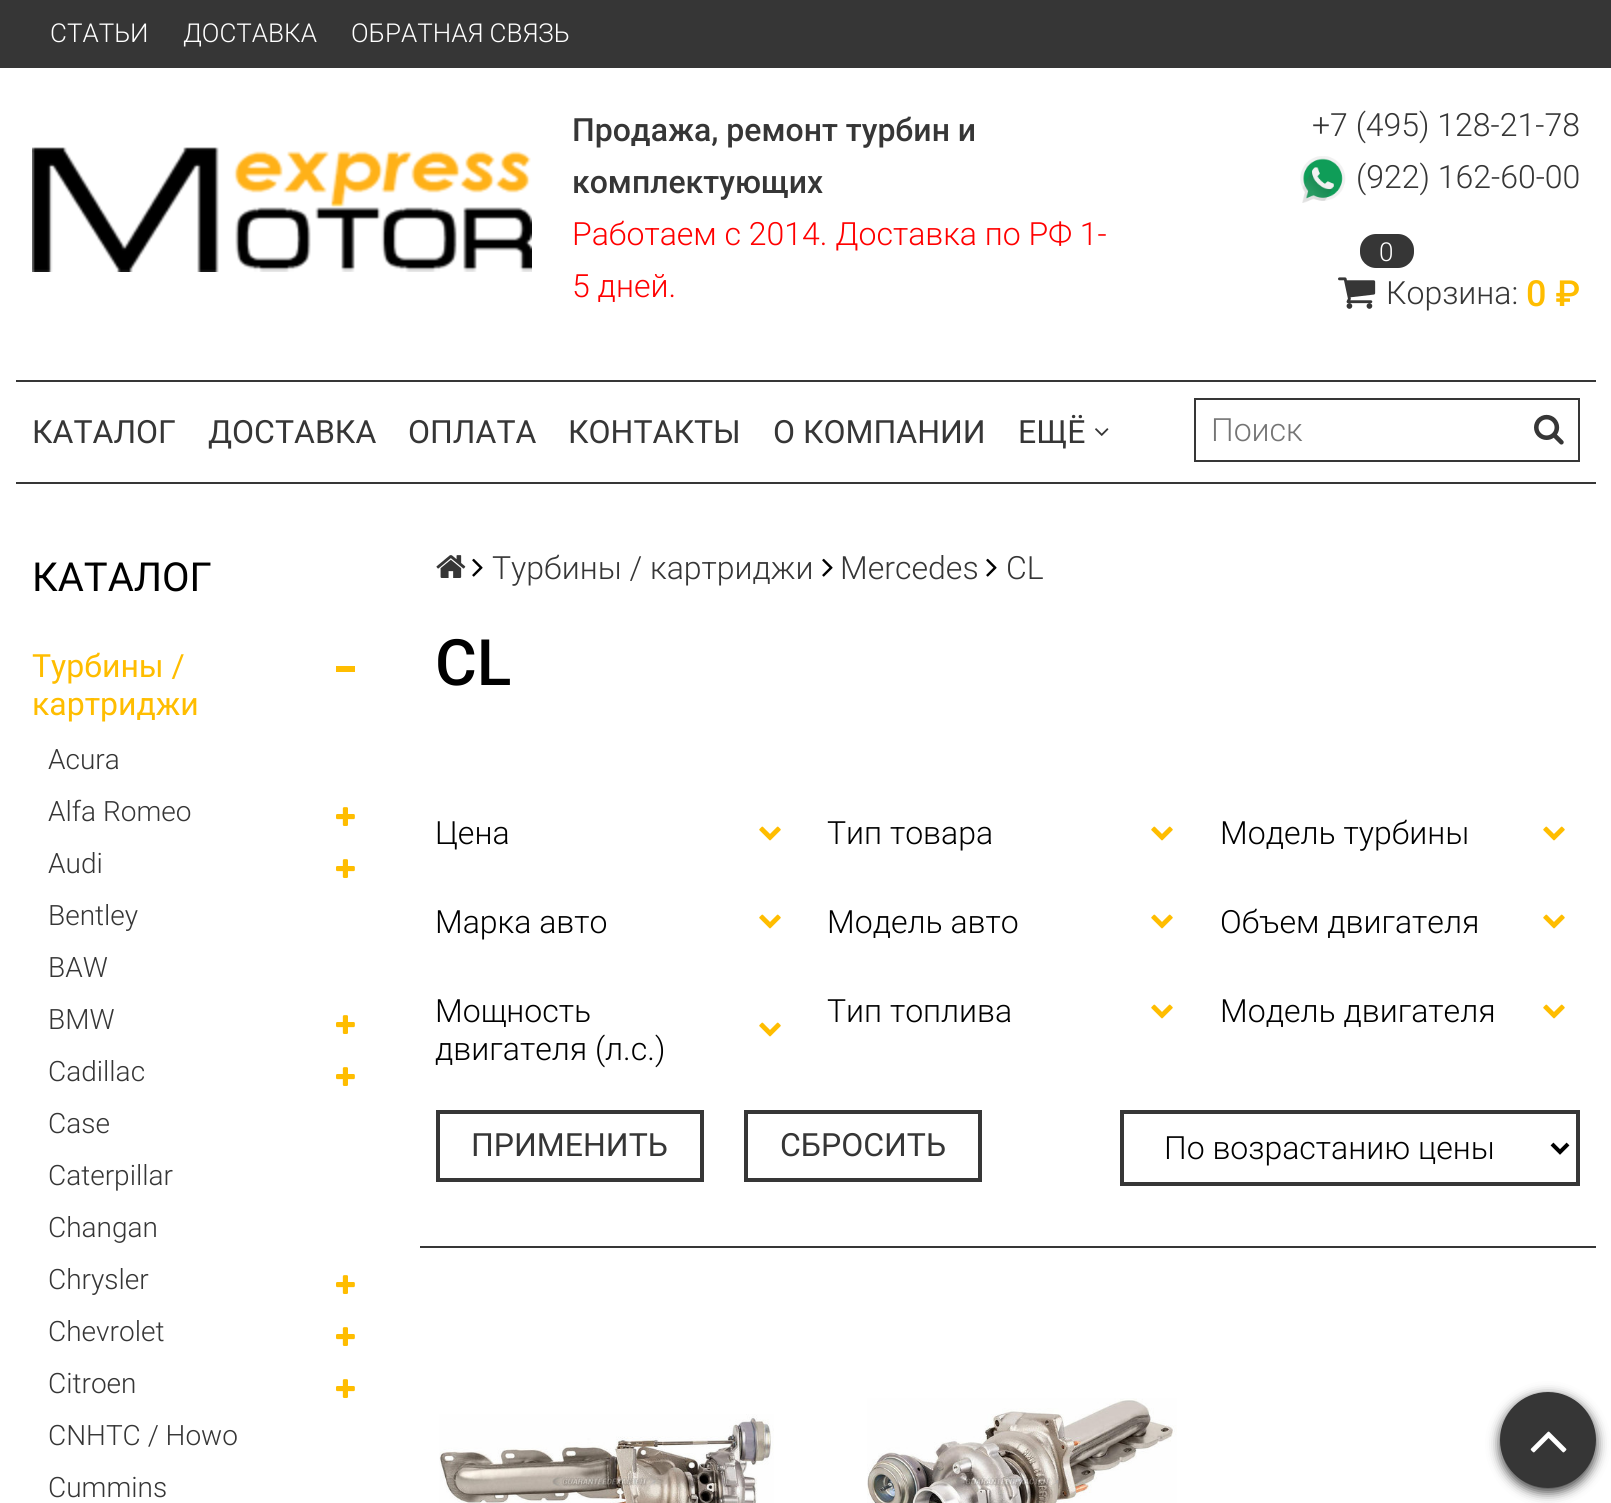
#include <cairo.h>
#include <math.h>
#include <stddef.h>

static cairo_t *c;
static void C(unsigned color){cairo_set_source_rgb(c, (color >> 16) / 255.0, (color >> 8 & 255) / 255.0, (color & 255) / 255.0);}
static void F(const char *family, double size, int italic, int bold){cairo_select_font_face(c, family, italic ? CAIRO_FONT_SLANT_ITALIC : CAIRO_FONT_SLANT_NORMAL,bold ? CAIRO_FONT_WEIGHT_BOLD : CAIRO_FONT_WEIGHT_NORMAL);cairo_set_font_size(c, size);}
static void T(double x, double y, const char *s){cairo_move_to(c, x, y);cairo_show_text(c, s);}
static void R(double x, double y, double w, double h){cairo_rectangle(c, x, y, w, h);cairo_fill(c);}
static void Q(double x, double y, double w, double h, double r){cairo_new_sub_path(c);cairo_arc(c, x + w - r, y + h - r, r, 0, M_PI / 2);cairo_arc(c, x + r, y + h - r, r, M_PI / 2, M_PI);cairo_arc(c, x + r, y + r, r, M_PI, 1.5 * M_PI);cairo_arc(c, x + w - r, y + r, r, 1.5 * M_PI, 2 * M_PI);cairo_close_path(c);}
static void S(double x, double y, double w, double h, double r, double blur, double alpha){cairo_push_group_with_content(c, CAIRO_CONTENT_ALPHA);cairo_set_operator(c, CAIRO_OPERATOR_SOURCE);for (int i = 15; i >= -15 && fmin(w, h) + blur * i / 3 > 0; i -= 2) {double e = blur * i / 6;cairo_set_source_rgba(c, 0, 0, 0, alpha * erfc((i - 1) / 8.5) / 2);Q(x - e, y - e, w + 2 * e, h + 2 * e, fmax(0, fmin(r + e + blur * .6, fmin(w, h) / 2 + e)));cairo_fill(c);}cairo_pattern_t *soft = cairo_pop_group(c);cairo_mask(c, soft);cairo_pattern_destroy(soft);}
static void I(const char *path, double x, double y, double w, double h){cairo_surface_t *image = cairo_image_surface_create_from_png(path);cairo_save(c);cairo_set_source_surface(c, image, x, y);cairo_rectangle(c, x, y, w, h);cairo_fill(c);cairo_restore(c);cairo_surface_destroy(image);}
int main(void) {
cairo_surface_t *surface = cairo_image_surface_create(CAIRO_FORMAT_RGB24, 1611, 1503);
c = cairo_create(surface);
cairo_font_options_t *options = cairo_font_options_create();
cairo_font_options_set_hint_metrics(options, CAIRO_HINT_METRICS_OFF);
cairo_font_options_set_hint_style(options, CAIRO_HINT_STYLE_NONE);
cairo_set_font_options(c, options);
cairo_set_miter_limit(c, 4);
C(0xffffff);
cairo_paint(c);
C(0x363636);
R(0,0,1611,68);
F("Roboto Light",26,0,0);
C(0xffffff);
T(50,42,"СТАТЬИ");
T(183,42,"ДОСТАВКА");
T(351,42,"ОБРАТНАЯ СВЯЗЬ");
I("1.png",32,147,500,125);
F("Roboto Medium",32,0,0);
C(0x363636);
T(572,141,"Продажа, ремонт турбин и");
T(572,193,"комплектующих");
F("Roboto Light",32,0,0);
C(0xff0000);
T(572,245,"Работаем с 2014. Доставка по РФ 1-");
T(572,297,"5 дней.");
C(0x363636);
T(1312,136,"+7 (495) 128-21-78");
I("2.png",1300,156,46,47);
T(1356,188,"(922) 162-60-00");
Q(1360,234,54,34,16);
cairo_fill(c);
F("Roboto Light",26,0,0);
C(0xffffff);
T(1379,261,"0");
I("3.png",1338,277,38,32);
F("Roboto Light",32,0,0);
C(0x363636);
T(1386,304,"Корзина:");
F("Roboto Medium",36,0,0);
C(0xffbd00);
T(1526,306,"0 ₽");
C(0x363636);
R(16,380,1580,2);
R(16,482,1580,2);
F("Roboto",32,0,0);
T(32,443,"КАТАЛОГ");
T(208,443,"ДОСТАВКА");
T(408,443,"ОПЛАТА");
T(568,443,"КОНТАКТЫ");
T(773,443,"О КОМПАНИИ");
T(1018,443,"ЕЩЁ");
I("4.png",1095,428,14,8);
cairo_rectangle(c,1195,399,384,62);
cairo_stroke(c);
F("Roboto Light",32,0,0);
C(0x757575);
T(1211,441,"Поиск");
I("5.png",1534,414,30,31);
F("Roboto",40,0,0);
C(0x000000);
T(32,591,"КАТАЛОГ");
F("Roboto",32,0,0);
C(0xffbd00);
T(32,677,"Турбины /");
T(32,715,"картриджи");
R(336,666,19,6);
F("Roboto Light",28,0,0);
C(0x363636);
T(48,769,"Acura");
T(48,821,"Alfa Romeo");
I("6.png",336,807,19,19);
T(48,873,"Audi");
I("6.png",336,859,19,19);
T(48,925,"Bentley");
T(48,977,"BAW");
T(48,1029,"BMW");
I("6.png",336,1015,19,19);
T(48,1081,"Cadillac");
I("6.png",336,1067,19,19);
T(48,1133,"Case");
T(48,1185,"Caterpillar");
T(48,1237,"Changan");
T(48,1289,"Chrysler");
I("6.png",336,1275,19,19);
T(48,1341,"Chevrolet");
I("6.png",336,1327,19,19);
T(48,1393,"Citroen");
I("6.png",336,1379,19,19);
T(48,1445,"CNHTC / Howo");
T(48,1497,"Cummins");
I("7.png",436,555,30,23);
I("8.png",472,558,11,19);
F("Roboto Light",32,0,0);
T(492,579,"Турбины / картриджи");
I("8.png",822,558,11,19);
T(840,579,"Mercedes");
I("8.png",986,558,11,19);
T(1006,579,"CL");
F("Roboto Medium",64,0,0);
C(0x000000);
T(435,685,"CL");
C(0x363636);
R(420,1246,1176,2);
F("Roboto Light",32,0,0);
C(0x000000);
T(435,844,"Цена");
I("9.png",759,826,22,15);
T(827,844,"Тип товара");
I("9.png",1151,826,22,15);
T(1220,844,"Модель турбины");
I("9.png",1543,826,22,15);
T(435,933,"Марка авто");
I("9.png",759,914,22,15);
T(827,933,"Модель авто");
I("9.png",1151,914,22,15);
T(1220,933,"Объем двигателя");
I("9.png",1543,914,22,15);
T(435,1022,"Мощность");
I("9.png",759,1022,22,15);
T(435,1060,"двигателя (л.с.)");
T(827,1022,"Тип топлива");
I("9.png",1151,1004,22,15);
T(1220,1022,"Модель двигателя");
I("9.png",1543,1004,22,15);
cairo_rectangle(c,438,1112,264,68);
C(0x363636);
cairo_set_line_width(c,4);
cairo_stroke(c);
F("Roboto",32,0,0);
T(471,1156,"ПРИМЕНИТЬ");
cairo_rectangle(c,746,1112,234,68);
cairo_stroke(c);
T(780,1156,"СБРОСИТЬ");
cairo_rectangle(c,1122,1112,456,72);
cairo_stroke(c);
cairo_new_path(c);
cairo_move_to(c,1552,1144);
cairo_line_to(c,1560,1152);
cairo_line_to(c,1568,1144);
C(0x000000);
cairo_stroke(c);
F("Roboto Light",32,0,0);
T(1164,1159,"По возрастанию цены");
I("10.png",439,1414,335,89);
I("11.png",867,1398,310,105);
C(0x333333);
S(1500,1396,96,96,48,6,1);
C(0x363636);
cairo_arc(c,1548,1440,46,0,2 * M_PI);
cairo_fill_preserve(c);
cairo_stroke(c);
I("12.png",1530,1431,37,22);
cairo_surface_write_to_png(surface, "o.png");
cairo_font_options_destroy(options);
cairo_destroy(c);
cairo_surface_destroy(surface);
return 0;
}
